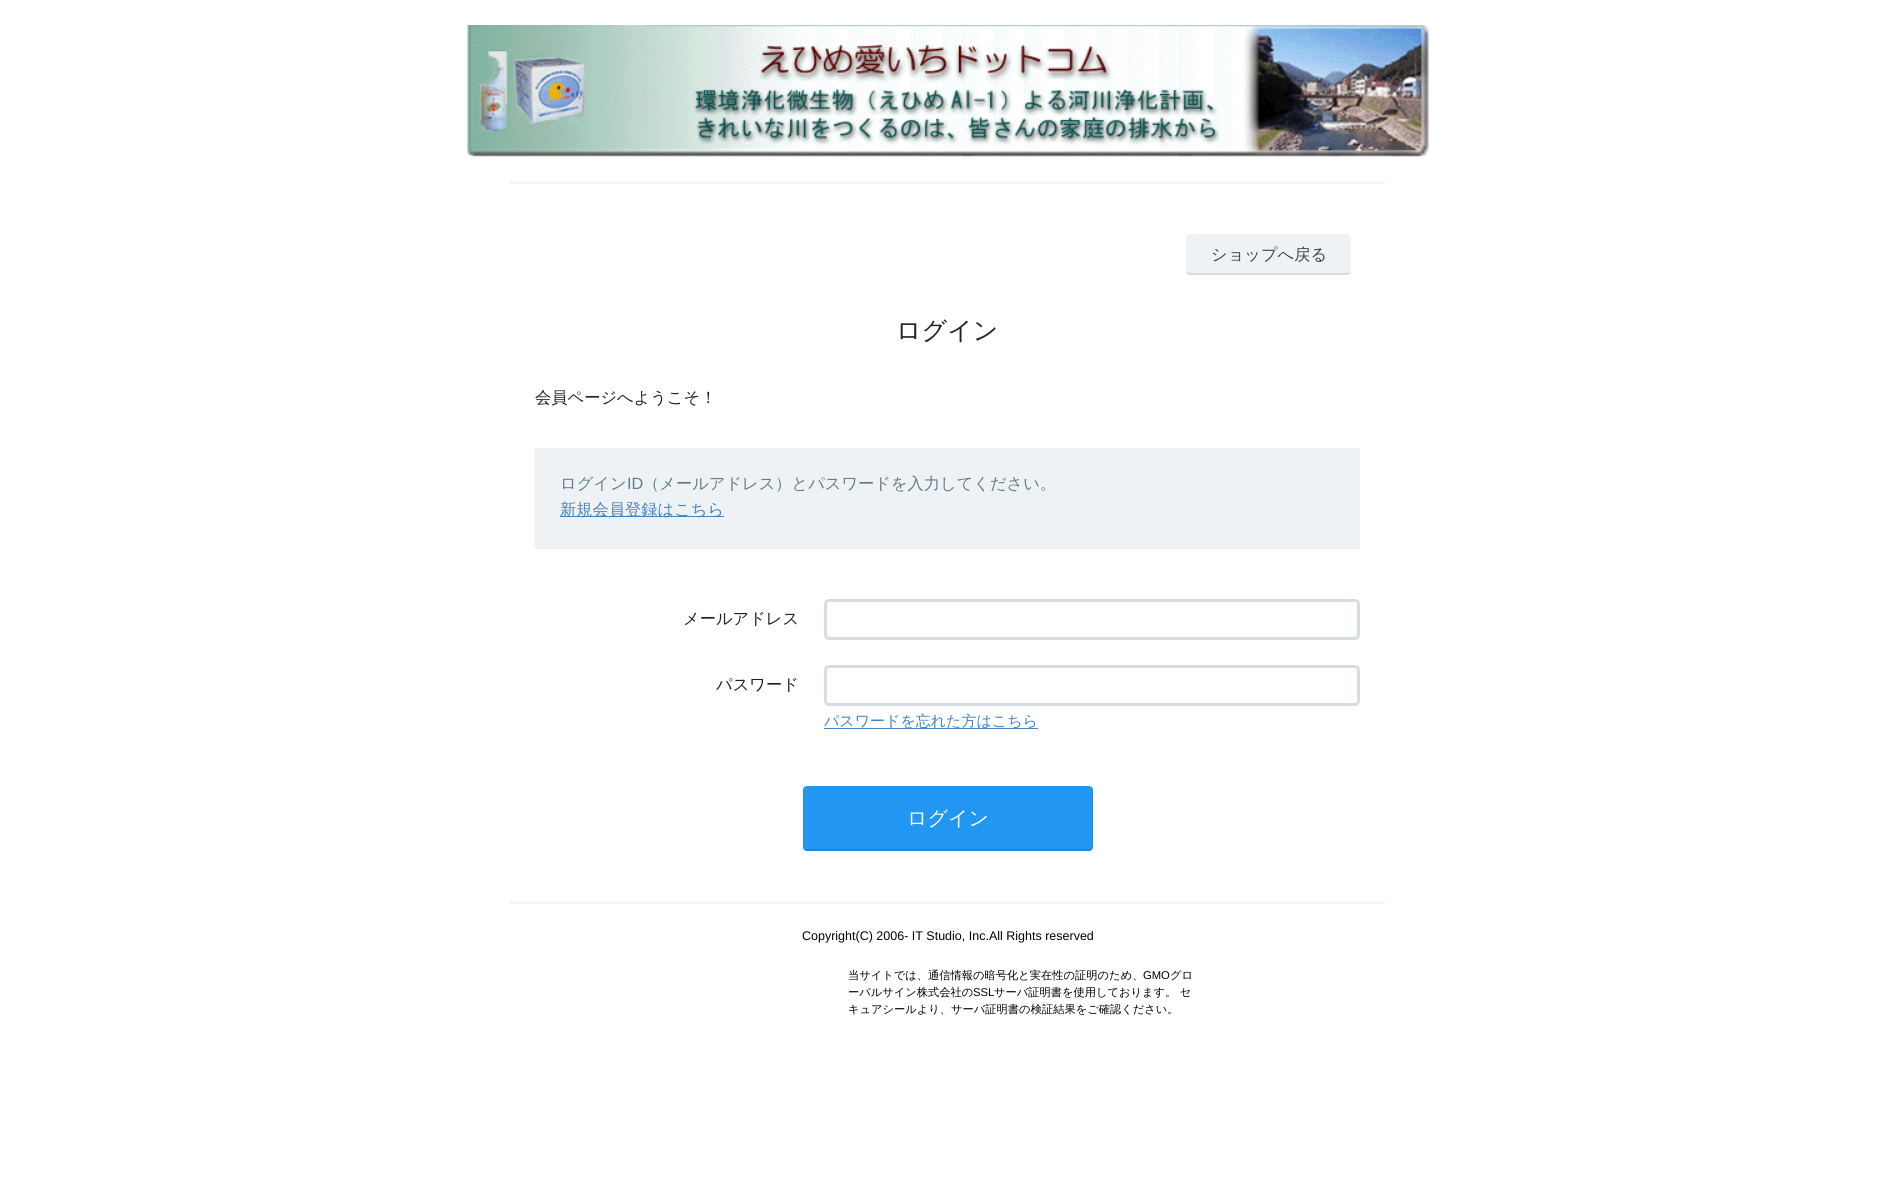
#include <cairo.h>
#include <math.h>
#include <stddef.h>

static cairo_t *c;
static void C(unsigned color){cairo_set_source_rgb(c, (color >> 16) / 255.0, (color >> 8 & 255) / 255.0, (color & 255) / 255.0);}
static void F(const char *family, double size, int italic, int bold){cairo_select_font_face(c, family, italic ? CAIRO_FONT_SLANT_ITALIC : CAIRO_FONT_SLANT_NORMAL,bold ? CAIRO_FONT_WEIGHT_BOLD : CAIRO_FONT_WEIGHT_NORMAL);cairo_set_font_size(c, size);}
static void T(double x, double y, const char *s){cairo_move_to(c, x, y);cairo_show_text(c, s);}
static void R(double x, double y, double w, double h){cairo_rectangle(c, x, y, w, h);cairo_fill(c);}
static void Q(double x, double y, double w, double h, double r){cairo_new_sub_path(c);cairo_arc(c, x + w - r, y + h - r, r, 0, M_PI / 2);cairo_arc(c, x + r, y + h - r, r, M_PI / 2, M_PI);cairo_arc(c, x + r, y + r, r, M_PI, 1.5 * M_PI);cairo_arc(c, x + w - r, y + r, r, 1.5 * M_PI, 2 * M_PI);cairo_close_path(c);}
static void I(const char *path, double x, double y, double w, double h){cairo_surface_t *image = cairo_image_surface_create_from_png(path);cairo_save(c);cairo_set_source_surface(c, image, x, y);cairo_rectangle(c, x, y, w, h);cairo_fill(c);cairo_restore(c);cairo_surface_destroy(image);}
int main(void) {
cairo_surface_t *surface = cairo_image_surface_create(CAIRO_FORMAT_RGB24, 1895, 1203);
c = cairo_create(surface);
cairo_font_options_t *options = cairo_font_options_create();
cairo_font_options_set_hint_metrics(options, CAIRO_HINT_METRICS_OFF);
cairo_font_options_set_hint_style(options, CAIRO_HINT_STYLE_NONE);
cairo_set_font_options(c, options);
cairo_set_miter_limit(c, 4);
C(0xffffff);
cairo_paint(c);
I("1.png",467,25,962,132);
C(0xf6f6f6);
R(510,181,875,3);
R(510,901,875,3);
C(0xeff2f4);
Q(1186,234,165,41,4);
cairo_fill(c);
cairo_set_source_rgba(c,0,0,0,0.1);
cairo_new_path(c);
cairo_move_to(c,1186,270);
cairo_line_to(c,1186,271);
cairo_curve_to(c,1186,273,1188,275,1190,275);
cairo_line_to(c,1347,275);
cairo_curve_to(c,1349,275,1351,273,1351,271);
cairo_line_to(c,1351,270);
cairo_curve_to(c,1351,272,1350,273,1348,273);
cairo_line_to(c,1190,273);
cairo_curve_to(c,1188,273,1186,272,1186,270);
cairo_close_path(c);
cairo_fill(c);
F("WenQuanYi Zen Hei Medium",16.25,0,0);
C(0x35454c);
T(1211,260,"ショップへ戻る");
F("WenQuanYi Zen Hei Medium",25,0,0);
C(0x222222);
T(896,339,"ログイン");
F("WenQuanYi Zen Hei Medium",16.25,0,0);
T(535,403,"会員ページへようこそ！");
C(0xeff2f4);
R(535,448,825,101);
C(0x607d8b);
T(560,489,"ログイン");
F("Liberation Sans",16.25,0,0);
T(627,489,"ID");
F("WenQuanYi Zen Hei Medium",16.25,0,0);
T(643,489,"（メールアドレス）とパスワードを入力してください。");
C(0x4183c4);
R(560,516,164,1);
T(560,515,"新規会員登録はこちら");
C(0x222222);
T(683,624,"メールアドレス");
Q(825.5,600.5,533,38,3.5);
C(0xd7dee2);
cairo_set_line_width(c,3);
cairo_stroke(c);
C(0x222222);
T(716,690,"パスワード");
Q(825.5,666.5,533,38,3.5);
C(0xd7dee2);
cairo_stroke(c);
C(0x4183c4);
R(824,728,214,1);
F("WenQuanYi Zen Hei Medium",15,0,0);
T(824,726,"パスワードを忘れた方はこちら");
C(0x2196f3);
Q(803,786,290,65,4);
cairo_fill(c);
cairo_set_source_rgba(c,0,0,0,0.1);
cairo_new_path(c);
cairo_move_to(c,803,848);
cairo_curve_to(c,804,850,805,851,807,851);
cairo_line_to(c,1089,851);
cairo_curve_to(c,1091,851,1093,849,1093,847);
cairo_line_to(c,1093,790);
cairo_curve_to(c,1093,789,1093,788,1092,787);
cairo_line_to(c,1092,836);
cairo_curve_to(c,1092,838,1095,849,1089,849);
cairo_line_to(c,804,849);
cairo_close_path(c);
cairo_fill(c);
F("WenQuanYi Zen Hei Medium",20,0,0);
C(0xffffff);
T(907,825,"ログイン");
F("Liberation Sans",12.5,0,0);
C(0x000000);
T(802,940,"Copyright(C) 2006- IT Studio, Inc.All Rights reserved");
F("WenQuanYi Zen Hei Medium",11.25,0,0);
T(848,979,"当サイトでは、通信情報の暗号化と実在性の証明のため、");
F("Liberation Sans",11.25,0,0);
T(1143,979,"GMO");
F("WenQuanYi Zen Hei Medium",11.25,0,0);
T(1170,979,"グロ");
T(848,996,"ーバルサイン株式会社の");
F("Liberation Sans",11.25,0,0);
T(973,996,"SSL");
F("WenQuanYi Zen Hei Medium",11.25,0,0);
T(994,996,"サーバ証明書を使用しております。 セ");
T(848,1013,"キュアシールより、サーバ証明書の検証結果をご確認ください。");
cairo_surface_write_to_png(surface, "o.png");
cairo_font_options_destroy(options);
cairo_destroy(c);
cairo_surface_destroy(surface);
return 0;
}
